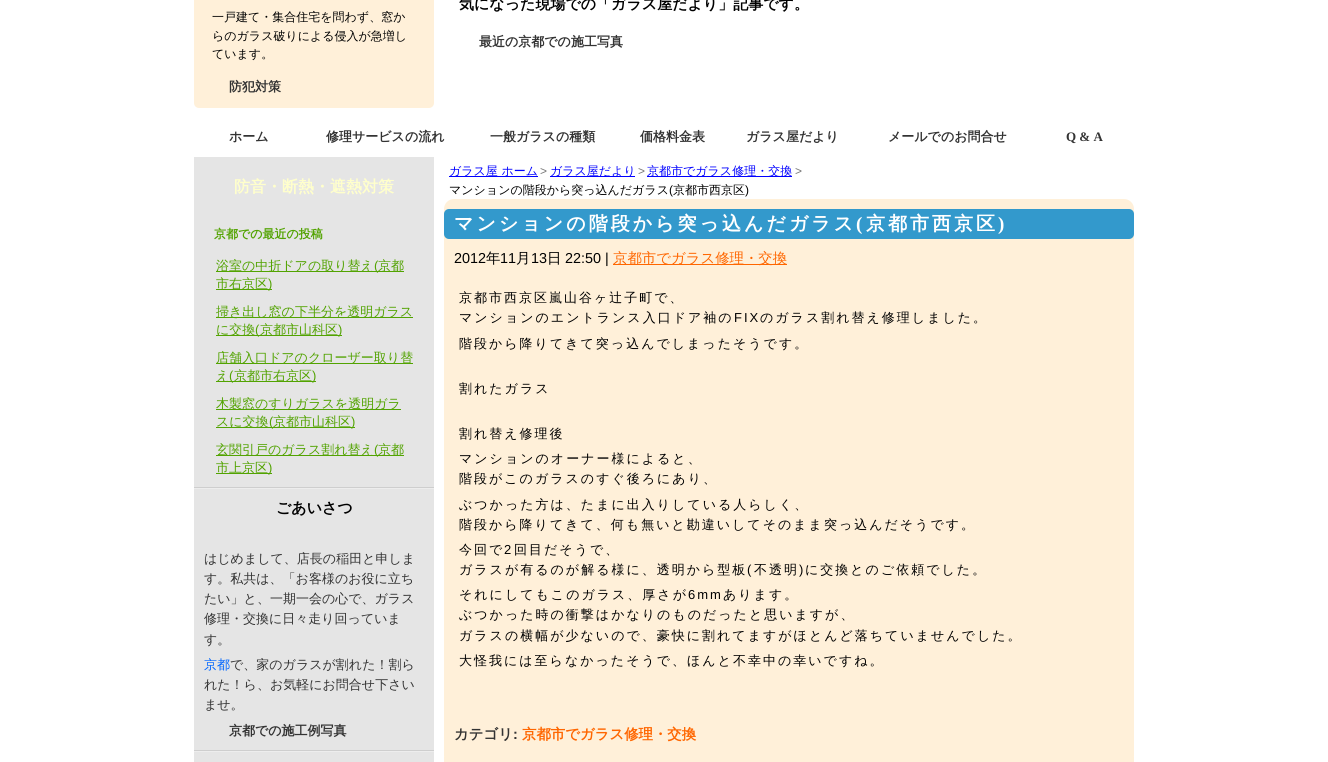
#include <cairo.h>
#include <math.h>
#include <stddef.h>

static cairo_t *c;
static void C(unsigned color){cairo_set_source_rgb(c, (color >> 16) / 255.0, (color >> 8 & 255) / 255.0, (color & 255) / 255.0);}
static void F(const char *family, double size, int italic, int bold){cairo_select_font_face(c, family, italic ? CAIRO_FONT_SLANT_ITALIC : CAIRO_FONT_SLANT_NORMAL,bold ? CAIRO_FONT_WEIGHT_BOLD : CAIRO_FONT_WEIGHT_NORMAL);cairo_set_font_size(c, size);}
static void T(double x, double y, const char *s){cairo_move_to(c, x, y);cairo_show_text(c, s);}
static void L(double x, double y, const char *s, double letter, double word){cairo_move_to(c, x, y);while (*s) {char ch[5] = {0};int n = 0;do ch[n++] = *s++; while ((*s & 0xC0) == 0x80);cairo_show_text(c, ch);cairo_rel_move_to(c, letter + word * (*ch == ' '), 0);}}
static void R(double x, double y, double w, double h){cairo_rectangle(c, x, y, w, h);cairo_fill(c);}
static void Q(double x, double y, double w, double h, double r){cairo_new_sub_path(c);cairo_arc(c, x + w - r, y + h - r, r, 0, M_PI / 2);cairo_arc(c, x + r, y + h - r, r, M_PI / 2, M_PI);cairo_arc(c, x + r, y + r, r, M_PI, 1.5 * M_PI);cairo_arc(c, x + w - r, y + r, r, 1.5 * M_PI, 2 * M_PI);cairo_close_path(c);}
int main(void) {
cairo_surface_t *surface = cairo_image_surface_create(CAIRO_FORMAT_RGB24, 1328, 762);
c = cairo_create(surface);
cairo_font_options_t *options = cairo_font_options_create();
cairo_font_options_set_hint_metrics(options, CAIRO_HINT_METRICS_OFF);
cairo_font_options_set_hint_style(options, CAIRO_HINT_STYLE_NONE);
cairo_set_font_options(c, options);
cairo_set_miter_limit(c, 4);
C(0xffffff);
cairo_paint(c);
C(0xfff0d9);
Q(194,-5,240,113,5);
cairo_fill(c);
F("WenQuanYi Zen Hei Medium",12,0,0);
C(0x000000);
T(212,21,"一戸建て・集合住宅を問わず、窓か");
T(212,40,"らのガラス破りによる侵入が急増し");
T(212,58,"ています。");
F("WenQuanYi Zen Hei",13,0,1);
C(0x333333);
T(229,91,"防犯対策");
F("WenQuanYi Zen Hei",15,0,1);
C(0x000000);
T(459,9,"気になった現場での「ガラス屋だより」記事です。");
F("WenQuanYi Zen Hei",13,0,1);
C(0x333333);
T(479,46,"最近の京都での施工写真");
T(229,141,"ホーム");
T(326,141,"修理サービスの流れ");
T(490,141,"一般ガラスの種類");
T(640,141,"価格料金表");
T(746,141,"ガラス屋だより");
T(888,141,"メールでのお問合せ");
F("Liberation Serif",13,0,1);
T(1066,141,"Q & A");
C(0xe5e5e5);
R(194,157,240,605);
F("WenQuanYi Zen Hei",16,0,1);
C(0xffffcc);
T(234,192,"防音・断熱・遮熱対策");
F("WenQuanYi Zen Hei",12,0,1);
C(0x52a301);
T(214,238,"京都での最近の投稿");
R(216,271,188,1);
F("WenQuanYi Zen Hei Medium",13,0,0);
T(216,270,"浴室の中折ドアの取り替え");
F("Liberation Sans",13,0,0);
T(374,270,"(");
F("WenQuanYi Zen Hei Medium",13,0,0);
T(378,270,"京都");
R(216,289,56,1);
T(216,288,"市右京区");
F("Liberation Sans",13,0,0);
T(268,288,")");
R(216,317,197,1);
F("WenQuanYi Zen Hei Medium",13,0,0);
T(216,316,"掃き出し窓の下半分を透明ガラス");
R(216,335,126,1);
T(216,334,"に交換");
F("Liberation Sans",13,0,0);
T(255,334,"(");
F("WenQuanYi Zen Hei Medium",13,0,0);
T(260,334,"京都市山科区");
F("Liberation Sans",13,0,0);
T(338,334,")");
R(216,363,197,1);
F("WenQuanYi Zen Hei Medium",13,0,0);
T(216,362,"店舗入口ドアのクローザー取り替");
R(216,381,100,1);
T(216,380,"え");
F("Liberation Sans",13,0,0);
T(229,380,"(");
F("WenQuanYi Zen Hei Medium",13,0,0);
T(234,380,"京都市右京区");
F("Liberation Sans",13,0,0);
T(312,380,")");
R(216,409,185,1);
F("WenQuanYi Zen Hei Medium",13,0,0);
T(216,408,"木製窓のすりガラスを透明ガラ");
R(216,427,139,1);
T(216,426,"スに交換");
F("Liberation Sans",13,0,0);
T(269,426,"(");
F("WenQuanYi Zen Hei Medium",13,0,0);
T(273,426,"京都市山科区");
F("Liberation Sans",13,0,0);
T(351,426,")");
R(216,455,188,1);
F("WenQuanYi Zen Hei Medium",13,0,0);
T(216,454,"玄関引戸のガラス割れ替え");
F("Liberation Sans",13,0,0);
T(374,454,"(");
F("WenQuanYi Zen Hei Medium",13,0,0);
T(378,454,"京都");
R(216,473,56,1);
T(216,472,"市上京区");
F("Liberation Sans",13,0,0);
T(268,472,")");
C(0xcecece);
R(194,487,240,1);
C(0xededed);
R(194,488,240,1);
F("WenQuanYi Zen Hei",15,0,1);
C(0x000000);
T(276,513,"ごあいさつ");
F("WenQuanYi Zen Hei Medium",13,0,0);
C(0x333333);
T(204,563,"はじめまして、店長の稲田と申しま");
T(204,583,"す。私共は、「お客様のお役に立ち");
T(204,603,"たい」と、一期一会の心で、ガラス");
T(204,623,"修理・交換に日々走り回っていま");
T(204,644,"す。");
C(0x0066ff);
T(204,669,"京都");
C(0x333333);
T(230,669,"で、家のガラスが割れた！割ら");
T(204,689,"れた！ら、お気軽にお問合せ下さい");
T(204,709,"ませ。");
F("WenQuanYi Zen Hei",13,0,1);
T(229,735,"京都での施工例写真");
C(0xcecece);
R(194,750,240,1);
C(0xededed);
R(194,751,240,1);
C(0x0000ff);
R(449,176,89,1);
F("WenQuanYi Zen Hei Medium",12,0,0);
T(449,175,"ガラス屋 ホーム");
F("Liberation Sans",12,0,0);
C(0x777777);
T(540,175,">");
C(0x0000ff);
R(550,176,85,1);
F("WenQuanYi Zen Hei Medium",12,0,0);
T(550,175,"ガラス屋だより");
F("Liberation Sans",12,0,0);
C(0x777777);
T(638,175,">");
C(0x0000ff);
R(647,176,145,1);
F("WenQuanYi Zen Hei Medium",12,0,0);
T(647,175,"京都市でガラス修理・交換");
F("Liberation Sans",12,0,0);
C(0x777777);
T(795,175,">");
F("WenQuanYi Zen Hei Medium",12,0,0);
C(0x000000);
T(449,194,"マンションの階段から突っ込んだガラス");
F("Liberation Sans",12,0,0);
T(669,194,"(");
F("WenQuanYi Zen Hei Medium",12,0,0);
T(673,194,"京都市西京区");
F("Liberation Sans",12,0,0);
T(745,194,")");
C(0xfff0d9);
Q(444,199,690,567,10);
cairo_fill(c);
C(0x3399cc);
Q(444,209,690,30,5);
cairo_fill(c);
F("WenQuanYi Zen Hei",19,0,1);
C(0xffffff);
L(454,230,"マンションの階段から突っ込んだガラス",3,0);
F("Liberation Serif",19,0,1);
L(856,230,"(",3,0);
F("WenQuanYi Zen Hei",19,0,1);
L(866,230,"京都市西京区",3,0);
F("Liberation Serif",19,0,1);
L(998,230,")",3,0);
F("Liberation Sans",14.4,0,0);
C(0x000000);
T(454,263,"2012");
F("WenQuanYi Zen Hei Medium",14.4,0,0);
T(486,263,"年");
F("Liberation Sans",14.4,0,0);
T(500,263,"11");
F("WenQuanYi Zen Hei Medium",14.4,0,0);
T(516,263,"月");
F("Liberation Sans",14.4,0,0);
T(531,263,"13");
F("WenQuanYi Zen Hei Medium",14.4,0,0);
T(547,263,"日");
F("Liberation Sans",14.4,0,0);
T(565,263,"22:50 |");
C(0xff6600);
R(613,264,174,1);
F("WenQuanYi Zen Hei Medium",14.4,0,0);
T(613,263,"京都市でガラス修理・交換");
F("WenQuanYi Zen Hei Medium",13,0,0);
C(0x000000);
L(459,302,"京都市西京区嵐山谷ヶ辻子町で、",2,0);
L(459,322,"マンションのエントランス入口ドア袖の",2,0);
F("Liberation Sans",13,0,0);
L(734,322,"FIX",2,0);
F("WenQuanYi Zen Hei Medium",13,0,0);
L(760,322,"のガラス割れ替え修理しました。",2,0);
L(459,348,"階段から降りてきて突っ込んでしまったそうです。",2,0);
L(459,393,"割れたガラス",2,0);
L(459,438,"割れ替え修理後",2,0);
L(459,463,"マンションのオーナー様によると、",2,0);
L(459,483,"階段がこのガラスのすぐ後ろにあり、",2,0);
L(459,509,"ぶつかった方は、たまに出入りしている人らしく、",2,0);
L(459,529,"階段から降りてきて、何も無いと勘違いしてそのまま突っ込んだそうです。",2,0);
L(459,554,"今回で",2,0);
F("Liberation Sans",13,0,0);
L(504,554,"2",2,0);
F("WenQuanYi Zen Hei Medium",13,0,0);
L(514,554,"回目だそうで、",2,0);
L(459,574,"ガラスが有るのが解る様に、透明から型板",2,0);
F("Liberation Sans",13,0,0);
L(747,574,"(",2,0);
F("WenQuanYi Zen Hei Medium",13,0,0);
L(754,574,"不透明",2,0);
F("Liberation Sans",13,0,0);
L(799,574,")",2,0);
F("WenQuanYi Zen Hei Medium",13,0,0);
L(805,574,"に交換とのご依頼でした。",2,0);
L(459,599,"それにしてもこのガラス、厚さが",2,0);
F("Liberation Sans",13,0,0);
L(688,599,"6mm",2,0);
F("WenQuanYi Zen Hei Medium",13,0,0);
L(723,599,"あります。",2,0);
L(459,619,"ぶつかった時の衝撃はかなりのものだったと思いますが、",2,0);
L(459,640,"ガラスの横幅が少ないので、豪快に割れてますがほとんど落ちていませんでした。",2,0);
L(459,665,"大怪我には至らなかったそうで、ほんと不幸中の幸いですね。",2,0);
C(0xfff0d9);
R(444,757,690,5);
F("WenQuanYi Zen Hei",14.4,0,1);
C(0x333333);
T(454,739,"カテゴリ");
F("Liberation Sans",14.4,0,1);
T(513,739,":");
F("WenQuanYi Zen Hei",14.4,0,1);
C(0xff6600);
T(522,739,"京都市でガラス修理・交換");
cairo_surface_write_to_png(surface, "o.png");
cairo_font_options_destroy(options);
cairo_destroy(c);
cairo_surface_destroy(surface);
return 0;
}
